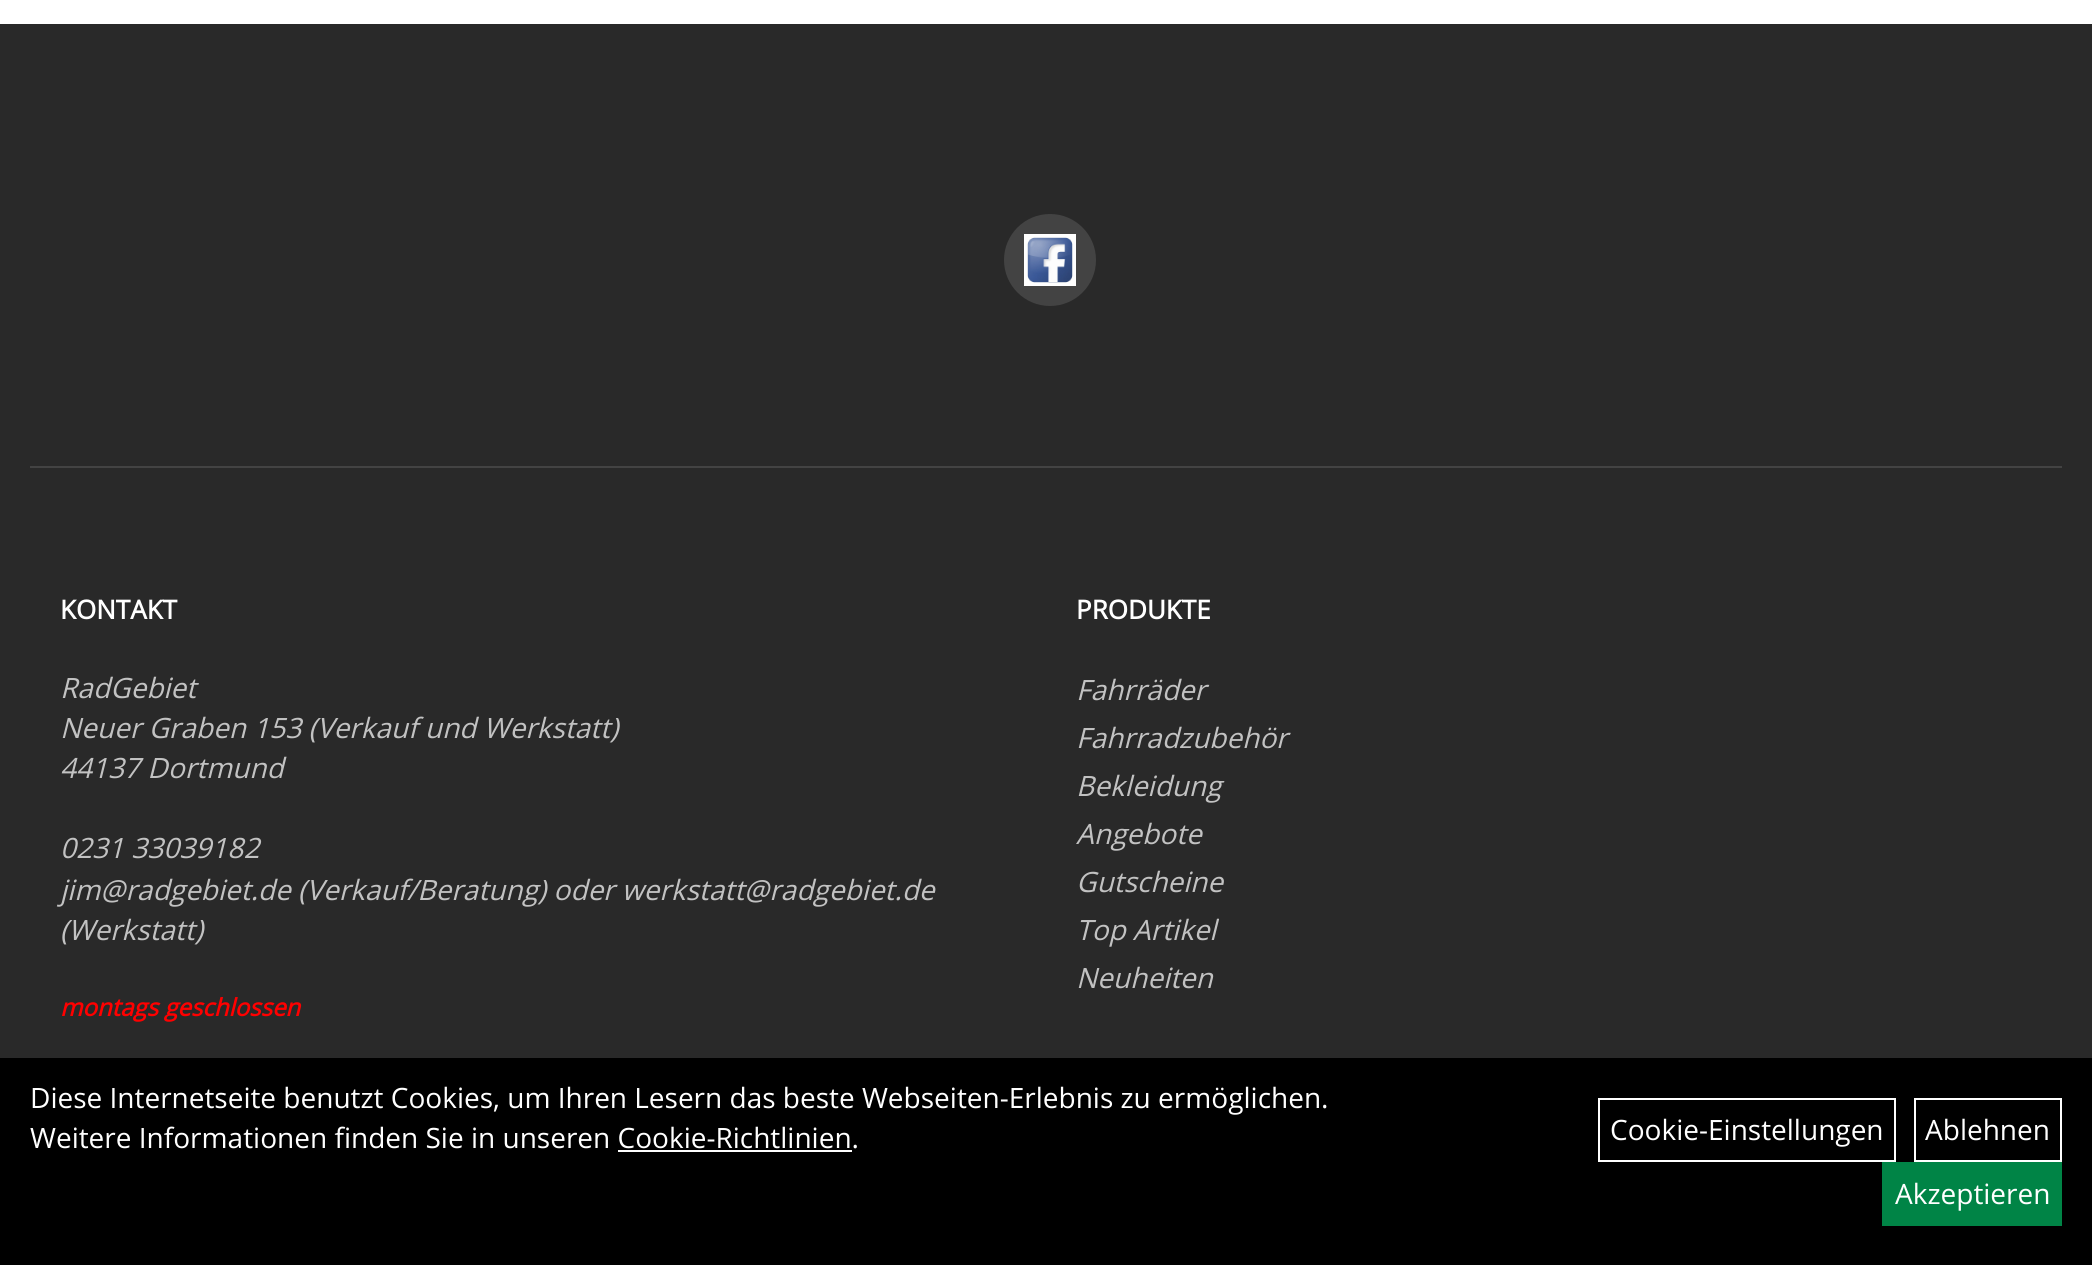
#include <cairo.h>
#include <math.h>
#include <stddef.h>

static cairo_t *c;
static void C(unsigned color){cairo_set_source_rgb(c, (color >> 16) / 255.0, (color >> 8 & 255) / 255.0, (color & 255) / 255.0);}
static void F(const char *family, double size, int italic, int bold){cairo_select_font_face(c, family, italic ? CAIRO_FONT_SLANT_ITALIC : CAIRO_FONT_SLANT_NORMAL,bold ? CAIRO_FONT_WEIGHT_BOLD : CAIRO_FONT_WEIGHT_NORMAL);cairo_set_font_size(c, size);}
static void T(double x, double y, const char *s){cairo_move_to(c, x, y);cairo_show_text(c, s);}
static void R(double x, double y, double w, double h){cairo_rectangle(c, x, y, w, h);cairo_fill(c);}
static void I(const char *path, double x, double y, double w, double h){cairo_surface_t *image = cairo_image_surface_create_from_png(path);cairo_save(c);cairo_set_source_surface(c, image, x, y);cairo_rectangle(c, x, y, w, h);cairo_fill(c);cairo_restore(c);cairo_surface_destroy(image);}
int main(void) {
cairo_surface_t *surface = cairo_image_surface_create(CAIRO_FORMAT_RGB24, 2092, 1265);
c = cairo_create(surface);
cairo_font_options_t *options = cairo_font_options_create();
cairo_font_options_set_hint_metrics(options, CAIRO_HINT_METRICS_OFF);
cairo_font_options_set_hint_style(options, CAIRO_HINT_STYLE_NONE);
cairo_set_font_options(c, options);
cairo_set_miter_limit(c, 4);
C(0xffffff);
cairo_paint(c);
C(0x292929);
R(0,24,2092,1034);
C(0x434343);
cairo_arc(c,1050,260,46,0,2 * M_PI);
cairo_fill(c);
I("1.png",1024,234,52,52);
R(30,466,2032,2);
F("Open Sans",26,0,1);
C(0xffffff);
T(60,619,"KONTAKT");
F("Open Sans",28,1,0);
C(0xc2c2c2);
T(60,698,"RadGebiet");
T(60,738,"Neuer Graben 153 (Verkauf und Werkstatt)");
T(60,778,"44137 Dortmund");
T(60,858,"0231 33039182");
T(60,900,"jim@radgebiet.de (Verkauf/Beratung) oder werkstatt@radgebiet.de");
T(60,940,"(Werkstatt)");
F("Open Sans",24,1,1);
C(0xff0000);
T(60,1016,"montags geschlossen");
F("Open Sans",26,0,1);
C(0xffffff);
T(1076,619,"PRODUKTE");
F("Open Sans",28,1,0);
C(0xc2c2c2);
T(1076,700,"Fahrräder");
T(1076,748,"Fahrradzubehör");
T(1076,796,"Bekleidung");
T(1076,844,"Angebote");
T(1076,892,"Gutscheine");
T(1076,940,"Top Artikel");
T(1076,988,"Neuheiten");
C(0x000000);
R(0,1058,2092,207);
F("Open Sans",28,0,0);
C(0xffffff);
T(30,1108,"Diese Internetseite benutzt Cookies, um Ihren Lesern das beste Webseiten-Erlebnis zu ermöglichen.");
T(30,1148,"Weitere Informationen finden Sie in unseren Cookie-Richtlinien.");
R(618,1150,234,2);
cairo_rectangle(c,1599,1099,296,62);
cairo_stroke(c);
T(1610,1140,"Cookie-Einstellungen");
cairo_rectangle(c,1915,1099,146,62);
cairo_stroke(c);
T(1925,1140,"Ablehnen");
C(0x008446);
R(1882,1162,180,64);
C(0xffffff);
T(1895,1204,"Akzeptieren");
cairo_surface_write_to_png(surface, "o.png");
cairo_font_options_destroy(options);
cairo_destroy(c);
cairo_surface_destroy(surface);
return 0;
}
